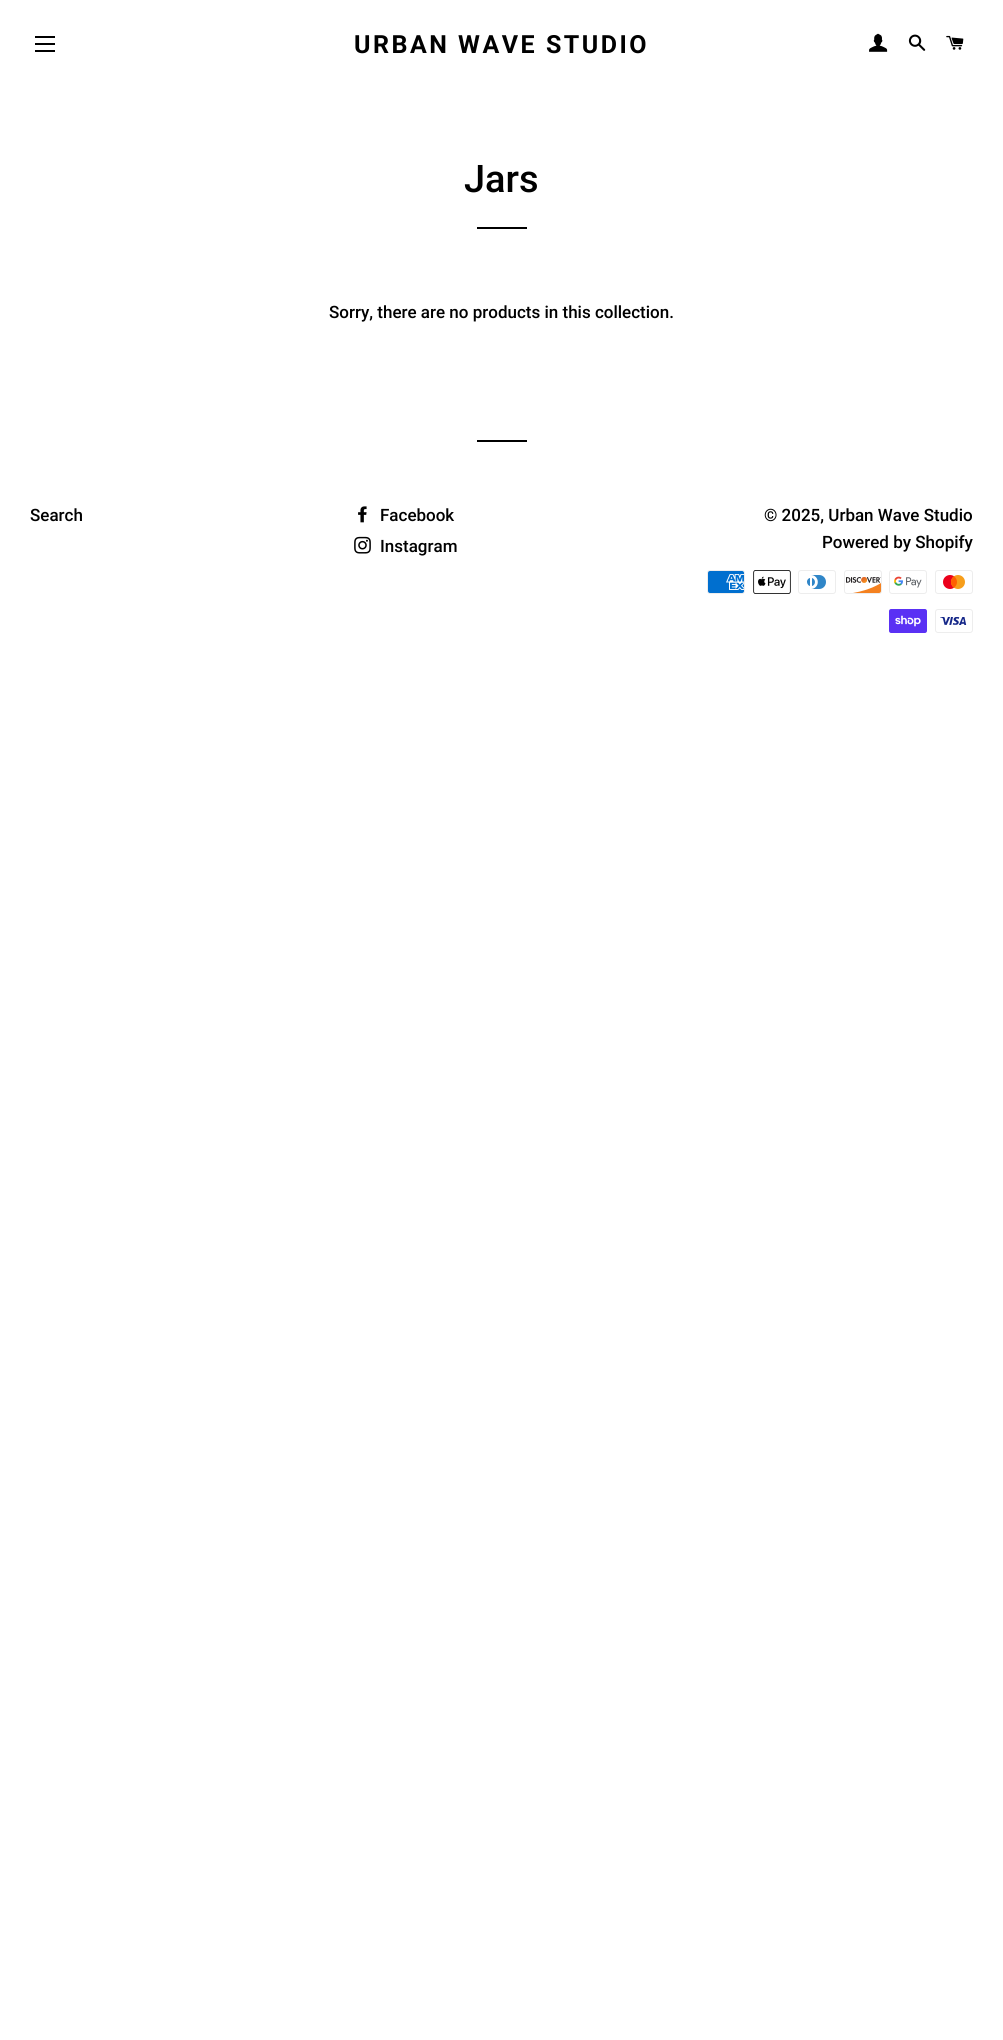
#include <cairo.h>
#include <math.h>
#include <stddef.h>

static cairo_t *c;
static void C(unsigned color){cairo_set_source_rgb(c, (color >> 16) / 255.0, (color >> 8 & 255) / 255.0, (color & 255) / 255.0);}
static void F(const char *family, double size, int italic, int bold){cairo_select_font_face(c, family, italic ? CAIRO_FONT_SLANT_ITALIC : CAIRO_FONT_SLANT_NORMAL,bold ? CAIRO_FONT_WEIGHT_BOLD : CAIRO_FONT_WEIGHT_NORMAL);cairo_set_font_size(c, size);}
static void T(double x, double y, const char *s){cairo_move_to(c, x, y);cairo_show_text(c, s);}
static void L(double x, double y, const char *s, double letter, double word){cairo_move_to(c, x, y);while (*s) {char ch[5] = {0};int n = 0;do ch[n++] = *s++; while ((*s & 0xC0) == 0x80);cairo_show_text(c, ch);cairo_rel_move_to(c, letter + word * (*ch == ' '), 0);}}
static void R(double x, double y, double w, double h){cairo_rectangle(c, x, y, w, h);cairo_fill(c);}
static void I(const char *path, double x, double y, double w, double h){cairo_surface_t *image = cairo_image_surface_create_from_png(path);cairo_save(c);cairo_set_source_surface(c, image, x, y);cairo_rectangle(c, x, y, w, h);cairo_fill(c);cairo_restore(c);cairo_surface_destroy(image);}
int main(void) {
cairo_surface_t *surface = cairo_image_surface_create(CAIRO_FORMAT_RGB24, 1003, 2040);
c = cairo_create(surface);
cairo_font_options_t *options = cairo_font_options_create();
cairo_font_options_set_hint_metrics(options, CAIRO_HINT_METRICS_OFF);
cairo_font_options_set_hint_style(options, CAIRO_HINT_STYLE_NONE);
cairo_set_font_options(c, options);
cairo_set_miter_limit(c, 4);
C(0xffffff);
cairo_paint(c);
C(0x000000);
R(35,36,20,2);
R(35,43,20,2);
R(35,50,20,2);
F("Roboto",25,0,1);
L(354,53,"URBAN WAVE STUDIO",2.5,0);
I("1.png",869,33,19,19);
I("2.png",908,34,18,17);
I("3.png",946,35,18,15);
F("Roboto Medium",38,0,0);
T(464,192,"Jars");
R(477,227,50,2);
F("Roboto Medium",17,0,0);
T(329,318,"Sorry, there are no products in this collection.");
R(477,440,50,2);
T(30,521,"Search");
I("4.png",358,506,9,17);
T(380,521,"Facebook");
I("5.png",354,536,17,18);
T(380,552,"Instagram");
T(764,521,"© 2025, Urban Wave Studio");
T(822,548,"Powered by Shopify");
I("6.png",707,570,38,24);
I("7.png",753,570,38,24);
I("8.png",798,570,38,24);
I("9.png",844,570,38,24);
I("10.png",889,570,38,24);
I("11.png",935,570,38,24);
I("12.png",889,609,38,24);
I("13.png",935,609,38,24);
cairo_surface_write_to_png(surface, "o.png");
cairo_font_options_destroy(options);
cairo_destroy(c);
cairo_surface_destroy(surface);
return 0;
}
